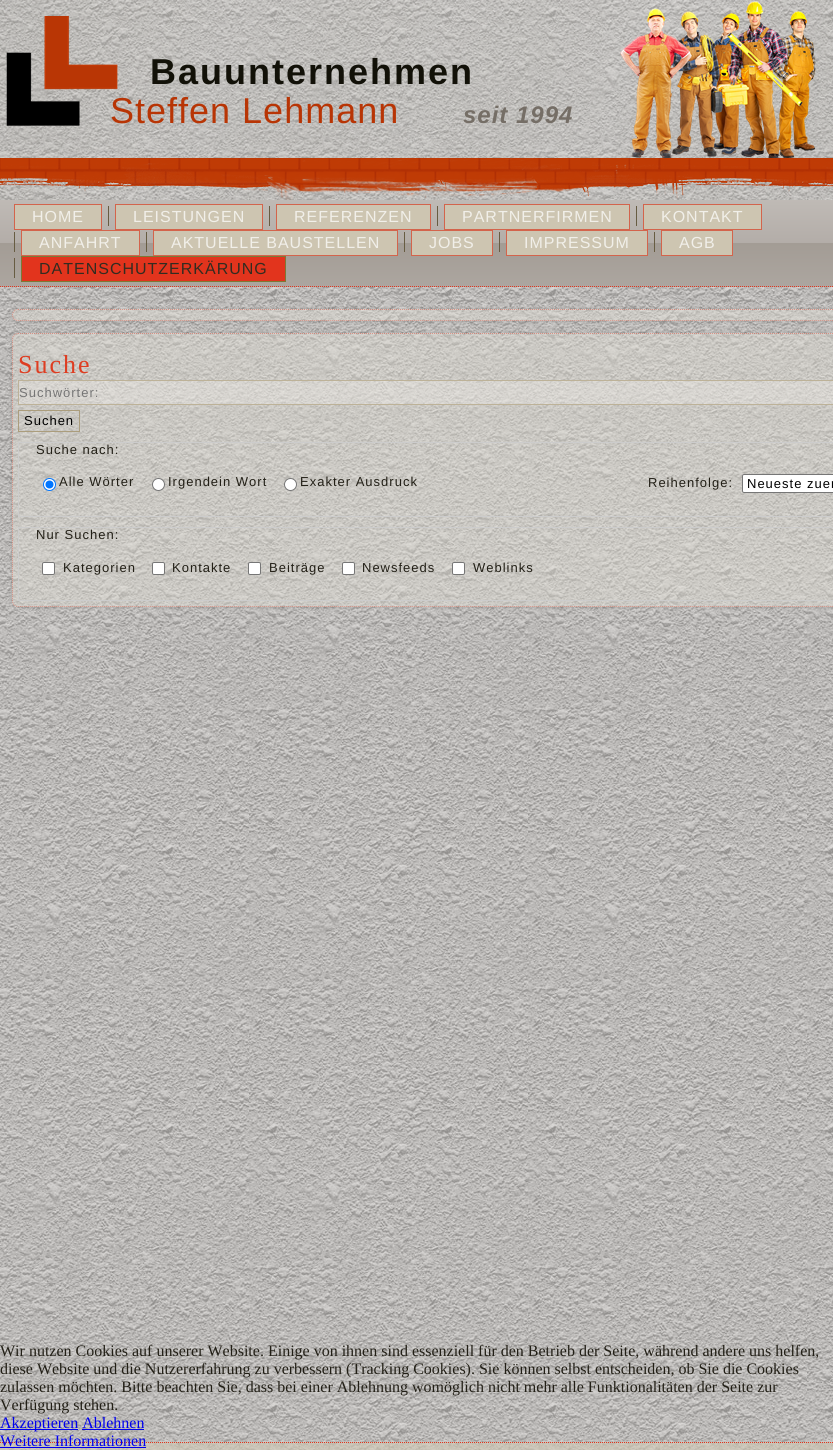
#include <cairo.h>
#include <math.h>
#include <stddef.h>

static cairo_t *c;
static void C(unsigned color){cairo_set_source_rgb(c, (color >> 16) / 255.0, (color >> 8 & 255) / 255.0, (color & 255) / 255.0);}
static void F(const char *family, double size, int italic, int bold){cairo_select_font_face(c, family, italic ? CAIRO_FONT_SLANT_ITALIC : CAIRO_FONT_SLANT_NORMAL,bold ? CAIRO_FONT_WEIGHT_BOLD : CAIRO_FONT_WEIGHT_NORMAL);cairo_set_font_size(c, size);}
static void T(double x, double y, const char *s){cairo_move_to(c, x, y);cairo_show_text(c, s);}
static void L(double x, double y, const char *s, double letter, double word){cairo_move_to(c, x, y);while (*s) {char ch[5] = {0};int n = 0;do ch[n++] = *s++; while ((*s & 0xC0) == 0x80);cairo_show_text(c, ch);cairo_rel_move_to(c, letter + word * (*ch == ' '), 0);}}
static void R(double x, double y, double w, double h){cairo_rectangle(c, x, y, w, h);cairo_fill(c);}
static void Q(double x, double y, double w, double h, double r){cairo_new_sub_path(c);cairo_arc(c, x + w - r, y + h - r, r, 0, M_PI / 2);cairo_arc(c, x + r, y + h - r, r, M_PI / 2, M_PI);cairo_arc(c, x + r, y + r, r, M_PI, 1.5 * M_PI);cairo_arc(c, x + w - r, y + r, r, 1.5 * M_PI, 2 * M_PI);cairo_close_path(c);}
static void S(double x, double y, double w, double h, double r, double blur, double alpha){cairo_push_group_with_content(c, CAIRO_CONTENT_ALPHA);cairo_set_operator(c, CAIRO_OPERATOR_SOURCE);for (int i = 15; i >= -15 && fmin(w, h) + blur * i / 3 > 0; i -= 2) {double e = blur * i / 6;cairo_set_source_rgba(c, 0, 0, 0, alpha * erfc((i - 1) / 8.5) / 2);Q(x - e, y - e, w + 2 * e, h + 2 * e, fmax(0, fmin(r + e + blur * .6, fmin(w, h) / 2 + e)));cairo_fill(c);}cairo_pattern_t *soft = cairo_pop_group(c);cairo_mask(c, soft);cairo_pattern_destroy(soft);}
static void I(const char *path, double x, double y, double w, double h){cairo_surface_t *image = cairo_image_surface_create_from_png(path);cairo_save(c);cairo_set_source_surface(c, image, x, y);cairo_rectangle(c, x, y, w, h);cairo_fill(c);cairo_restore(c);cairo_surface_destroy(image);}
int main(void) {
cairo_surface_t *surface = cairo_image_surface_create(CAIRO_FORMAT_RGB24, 833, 1450);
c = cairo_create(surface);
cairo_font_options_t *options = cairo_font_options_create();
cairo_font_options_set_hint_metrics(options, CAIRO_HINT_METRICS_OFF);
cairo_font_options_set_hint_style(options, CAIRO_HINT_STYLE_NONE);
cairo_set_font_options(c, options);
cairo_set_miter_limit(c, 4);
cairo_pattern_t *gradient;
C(0xcac7c4);
cairo_paint(c);
I("1.png",0,0,833,1450);
I("2.png",0,0,833,200);
F("Liberation Sans",36,0,1);
C(0x121108);
L(150,84,"Bauunternehmen",2,0);
I("3.png",6,16,112,110);
F("Liberation Sans",36,0,0);
C(0xb83505);
L(110,123,"Steffen Lehmann",1,0);
F("Liberation Sans",24,1,1);
C(0x756e66);
L(463,123,"seit 1994",1,0);
I("4.png",620,1,196,157);
I("5.png",0,158,833,42);
gradient = cairo_pattern_create_linear(450,200,450,287);
cairo_pattern_add_color_stop_rgba(gradient,0,0.749,0.729,0.71,1);
cairo_pattern_add_color_stop_rgba(gradient,.5,0.702,0.678,0.659,1);
cairo_pattern_add_color_stop_rgba(gradient,.5,0.639,0.612,0.584,1);
cairo_pattern_add_color_stop_rgba(gradient,1,0.675,0.651,0.627,1);
cairo_set_source(c,gradient);
cairo_pattern_destroy(gradient);
R(0,200,833,87);
cairo_new_path(c);
cairo_move_to(c,0,286.5);
cairo_line_to(c,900,286.5);
C(0xe2341d);
cairo_set_line_width(c,1);
cairo_set_dash(c,(double[]){1,1},2,0);
cairo_stroke(c);
C(0xcdc5b1);
cairo_rectangle(c,14.5,204.5,87,25);
cairo_fill_preserve(c);
C(0xd3644c);
cairo_set_dash(c,NULL,0,0);
cairo_stroke(c);
F("Liberation Sans",16,0,0);
C(0xf1efe9);
L(32,222,"HOME",1,0);
C(0x675c42);
R(108,206,1,20);
C(0xcdc5b1);
cairo_rectangle(c,115.5,204.5,147,25);
cairo_fill_preserve(c);
C(0xd3644c);
cairo_stroke(c);
C(0xf1efe9);
L(133,222,"LEISTUNGEN",1,0);
C(0x675c42);
R(269,206,1,20);
C(0xcdc5b1);
cairo_rectangle(c,276.5,204.5,154,25);
cairo_fill_preserve(c);
C(0xd3644c);
cairo_stroke(c);
C(0xf1efe9);
L(294,222,"REFERENZEN",1,0);
C(0x675c42);
R(437,206,1,20);
C(0xcdc5b1);
cairo_rectangle(c,444.5,204.5,185,25);
cairo_fill_preserve(c);
C(0xd3644c);
cairo_stroke(c);
C(0xf1efe9);
L(462,222,"PARTNERFIRMEN",1,0);
C(0x675c42);
R(636,206,1,20);
C(0xcdc5b1);
cairo_rectangle(c,643.5,204.5,118,25);
cairo_fill_preserve(c);
C(0xd3644c);
cairo_stroke(c);
C(0xf1efe9);
L(661,222,"KONTAKT",1,0);
C(0x675c42);
R(14,232,1,20);
C(0xcdc5b1);
cairo_rectangle(c,21.5,230.5,118,25);
cairo_fill_preserve(c);
C(0xd3644c);
cairo_stroke(c);
C(0xf1efe9);
L(39,248,"ANFAHRT",1,0);
C(0x675c42);
R(146,232,1,20);
C(0xcdc5b1);
cairo_rectangle(c,153.5,230.5,244,25);
cairo_fill_preserve(c);
C(0xd3644c);
cairo_stroke(c);
C(0xf1efe9);
L(171,248,"AKTUELLE BAUSTELLEN",1,0);
C(0x675c42);
R(404,232,1,20);
C(0xcdc5b1);
cairo_rectangle(c,411.5,230.5,81,25);
cairo_fill_preserve(c);
C(0xd3644c);
cairo_stroke(c);
C(0xf1efe9);
L(429,248,"JOBS",1,0);
C(0x675c42);
R(499,232,1,20);
C(0xcdc5b1);
cairo_rectangle(c,506.5,230.5,141,25);
cairo_fill_preserve(c);
C(0xd3644c);
cairo_stroke(c);
C(0xf1efe9);
L(524,248,"IMPRESSUM",1,0);
C(0x675c42);
R(654,232,1,20);
C(0xcdc5b1);
cairo_rectangle(c,661.5,230.5,71,25);
cairo_fill_preserve(c);
C(0xd3644c);
cairo_stroke(c);
C(0xf1efe9);
L(679,248,"AGB",1,0);
C(0x675c42);
R(14,258,1,20);
C(0xe2341d);
cairo_rectangle(c,21.5,256.5,264,25);
cairo_fill_preserve(c);
C(0x7c7936);
cairo_stroke(c);
C(0x322c20);
L(39,274,"DATENSCHUTZERKÄRUNG",1,0);
cairo_save(c);
cairo_set_fill_rule(c,CAIRO_FILL_RULE_EVEN_ODD);
cairo_new_path(c);
cairo_move_to(c,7,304);
cairo_line_to(c,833,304);
cairo_line_to(c,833,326);
cairo_line_to(c,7,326);
cairo_close_path(c);
cairo_move_to(c,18,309);
cairo_line_to(c,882,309);
cairo_curve_to(c,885.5,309,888,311.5,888,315);
cairo_curve_to(c,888,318.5,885.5,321,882,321);
cairo_line_to(c,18,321);
cairo_curve_to(c,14.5,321,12,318.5,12,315);
cairo_curve_to(c,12,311.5,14.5,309,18,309);
cairo_close_path(c);
cairo_clip(c);
C(0x000000);
S(11,308,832,14,7,1,.1);
cairo_restore(c);
cairo_set_source_rgba(c,0.898,0.882,0.843,0.4);
Q(12,309,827,12,6);
cairo_fill(c);
cairo_new_path(c);
cairo_move_to(c,18,309.5);
cairo_line_to(c,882,309.5);
cairo_curve_to(c,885,309.5,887.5,312,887.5,315);
cairo_curve_to(c,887.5,318,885,320.5,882,320.5);
cairo_line_to(c,18,320.5);
cairo_curve_to(c,15,320.5,12.5,318,12.5,315);
cairo_curve_to(c,12.5,312,15,309.5,18,309.5);
cairo_close_path(c);
cairo_set_source_rgba(c,0.886,0.204,0.114,0.4);
cairo_set_dash(c,(double[]){1,1},2,0);
cairo_stroke(c);
cairo_save(c);
cairo_set_fill_rule(c,CAIRO_FILL_RULE_EVEN_ODD);
cairo_new_path(c);
cairo_move_to(c,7,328);
cairo_line_to(c,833,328);
cairo_line_to(c,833,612);
cairo_line_to(c,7,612);
cairo_close_path(c);
cairo_move_to(c,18,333);
cairo_line_to(c,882,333);
cairo_curve_to(c,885.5,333,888,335.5,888,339);
cairo_line_to(c,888,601);
cairo_curve_to(c,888,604.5,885.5,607,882,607);
cairo_line_to(c,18,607);
cairo_curve_to(c,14.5,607,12,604.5,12,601);
cairo_line_to(c,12,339);
cairo_curve_to(c,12,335.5,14.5,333,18,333);
cairo_close_path(c);
cairo_clip(c);
C(0x000000);
S(11,332,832,276,7,1,.1);
cairo_restore(c);
cairo_set_source_rgba(c,0.898,0.882,0.843,0.4);
Q(12,333,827,274,6);
cairo_fill(c);
cairo_new_path(c);
cairo_move_to(c,18,333.5);
cairo_line_to(c,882,333.5);
cairo_curve_to(c,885,333.5,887.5,336,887.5,339);
cairo_line_to(c,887.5,601);
cairo_curve_to(c,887.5,604,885,606.5,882,606.5);
cairo_line_to(c,18,606.5);
cairo_curve_to(c,15,606.5,12.5,604,12.5,601);
cairo_line_to(c,12.5,339);
cairo_curve_to(c,12.5,336,15,333.5,18,333.5);
cairo_close_path(c);
cairo_set_source_rgba(c,0.886,0.204,0.114,0.4);
cairo_stroke(c);
F("Liberation Serif",26,0,0);
C(0xde3d21);
L(18,373,"Suche",2,0);
cairo_set_source_rgba(c,0.953,0.945,0.925,0.3);
cairo_rectangle(c,18.5,380.5,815,24);
cairo_fill_preserve(c);
C(0xbdb298);
cairo_set_dash(c,NULL,0,0);
cairo_stroke(c);
F("Liberation Sans",13,0,0);
C(0x757575);
L(19,397,"Suchwörter:",1,0);
cairo_rectangle(c,18.5,410.5,61,21);
C(0xab9d7c);
cairo_stroke(c);
C(0x000000);
L(24,425,"Suchen",1,0);
cairo_rectangle(c,18.5,442.5,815,74);
C(0xcccccc);
cairo_stroke(c);
C(0x221f16);
L(36,454,"Suche nach:",1,0);
C(0xffffff);
cairo_new_path(c);
cairo_arc(c,49.5,484.5,6,0,2 * M_PI);
cairo_fill_preserve(c);
C(0x0075ff);
cairo_stroke(c);
cairo_arc(c,49.5,484.5,4,0,2 * M_PI);
cairo_fill(c);
C(0x221f16);
L(59,486,"Alle Wörter",1,0);
C(0xffffff);
cairo_new_path(c);
cairo_arc(c,158.5,484.5,6,0,2 * M_PI);
cairo_fill_preserve(c);
C(0x767676);
cairo_stroke(c);
C(0x221f16);
L(168,486,"Irgendein Wort",1,0);
C(0xffffff);
cairo_new_path(c);
cairo_arc(c,290.5,484.5,6,0,2 * M_PI);
cairo_fill_preserve(c);
C(0x767676);
cairo_stroke(c);
C(0x221f16);
L(300,486,"Exakter Ausdruck",1,0);
L(648,487,"Reihenfolge:",1,0);
C(0xffffff);
Q(742.5,474.5,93,18,1.5);
cairo_fill_preserve(c);
C(0x767676);
cairo_stroke(c);
C(0x000000);
L(747,488,"Neueste zuer",1,0);
cairo_rectangle(c,18.5,527.5,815,73);
C(0xcccccc);
cairo_stroke(c);
C(0x221f16);
L(36,539,"Nur Suchen:",1,0);
C(0xffffff);
Q(42.5,562.5,12,12,1.5);
cairo_fill_preserve(c);
C(0x767676);
cairo_stroke(c);
C(0x221f16);
L(63,572,"Kategorien",1,0);
C(0xffffff);
Q(152.5,562.5,12,12,1.5);
cairo_fill_preserve(c);
C(0x767676);
cairo_stroke(c);
C(0x221f16);
L(172,572,"Kontakte",1,0);
C(0xffffff);
Q(248.5,562.5,12,12,1.5);
cairo_fill_preserve(c);
C(0x767676);
cairo_stroke(c);
C(0x221f16);
L(269,572,"Beiträge",1,0);
C(0xffffff);
Q(342.5,562.5,12,12,1.5);
cairo_fill_preserve(c);
C(0x767676);
cairo_stroke(c);
C(0x221f16);
L(362,572,"Newsfeeds",1,0);
C(0xffffff);
Q(452.5,562.5,12,12,1.5);
cairo_fill_preserve(c);
C(0x767676);
cairo_stroke(c);
C(0x221f16);
L(473,572,"Weblinks",1,0);
cairo_set_source_rgba(c,0.804,0.773,0.694,0.6);
R(0,1442,833,8);
I("6.png",1,1442,811,8);
cairo_new_path(c);
cairo_move_to(c,0,1442.5);
cairo_line_to(c,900,1442.5);
C(0xe2341d);
cairo_set_dash(c,(double[]){1,1},2,0);
cairo_stroke(c);
F("Liberation Serif",16,0,0);
C(0x221f16);
T(0,1356,"Wir nutzen Cookies auf unserer Website. Einige von ihnen sind essenziell für den Betrieb der Seite, während andere uns helfen,");
T(0,1374,"diese Website und die Nutzererfahrung zu verbessern (Tracking Cookies). Sie können selbst entscheiden, ob Sie die Cookies");
T(0,1392,"zulassen möchten. Bitte beachten Sie, dass bei einer Ablehnung womöglich nicht mehr alle Funktionalitäten der Seite zur");
T(0,1410,"Verfügung stehen.");
C(0x0000ee);
R(0,1429,78,1);
T(0,1428,"Akzeptieren Ablehnen");
R(82,1429,62,1);
T(0,1446,"Weitere Informationen");
R(0,1447,146,1);
cairo_surface_write_to_png(surface, "o.png");
cairo_font_options_destroy(options);
cairo_destroy(c);
cairo_surface_destroy(surface);
return 0;
}
